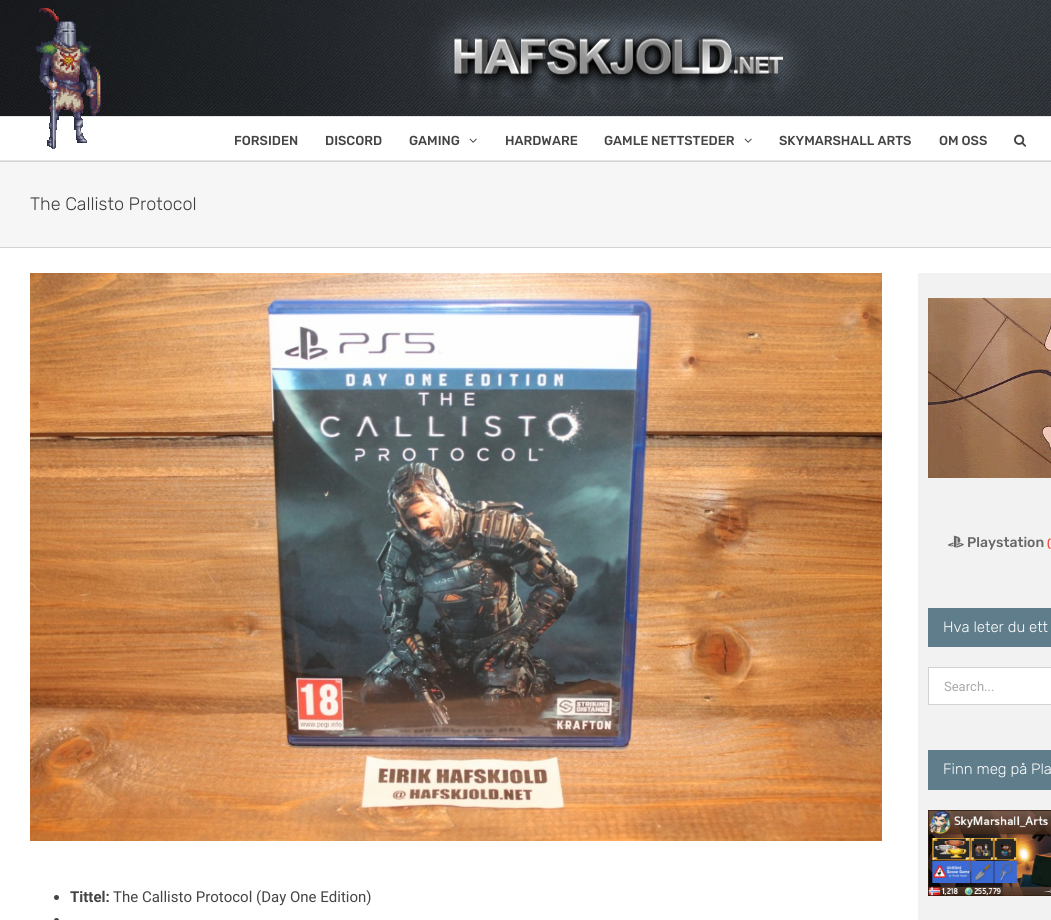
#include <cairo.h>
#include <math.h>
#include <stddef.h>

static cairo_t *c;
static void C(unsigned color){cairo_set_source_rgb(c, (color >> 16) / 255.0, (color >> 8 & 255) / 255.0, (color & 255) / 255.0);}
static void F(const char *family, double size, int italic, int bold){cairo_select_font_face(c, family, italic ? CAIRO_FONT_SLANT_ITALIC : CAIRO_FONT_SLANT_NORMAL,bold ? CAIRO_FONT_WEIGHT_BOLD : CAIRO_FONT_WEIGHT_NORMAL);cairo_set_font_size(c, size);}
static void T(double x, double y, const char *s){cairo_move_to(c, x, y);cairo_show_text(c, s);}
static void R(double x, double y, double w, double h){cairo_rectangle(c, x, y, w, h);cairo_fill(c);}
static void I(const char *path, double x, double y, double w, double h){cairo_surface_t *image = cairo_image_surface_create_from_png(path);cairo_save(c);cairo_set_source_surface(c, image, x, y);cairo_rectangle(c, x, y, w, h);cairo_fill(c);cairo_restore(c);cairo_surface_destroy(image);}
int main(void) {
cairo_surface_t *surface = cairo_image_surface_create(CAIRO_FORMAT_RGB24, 1051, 920);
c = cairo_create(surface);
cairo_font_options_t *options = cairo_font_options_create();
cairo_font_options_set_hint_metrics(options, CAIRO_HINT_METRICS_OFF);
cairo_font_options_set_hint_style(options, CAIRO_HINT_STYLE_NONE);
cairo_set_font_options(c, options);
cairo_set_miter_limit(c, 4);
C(0xf6f6f6);
cairo_paint(c);
I("1.png",0,0,1051,116);
C(0xe5e5e5);
R(0,116,1051,1);
C(0xffffff);
R(0,117,1051,43);
I("2.png",36,8,65,141);
C(0xe5e5e5);
R(0,160,1051,1);
F("Rubik Medium",13,0,0);
C(0x444444);
T(234,145,"FORSIDEN");
T(325,145,"DISCORD");
T(409,145,"GAMING");
I("3.png",469,138,8,5);
T(505,145,"HARDWARE");
T(604,145,"GAMLE NETTSTEDER");
I("3.png",744,138,8,5);
T(779,145,"SKYMARSHALL ARTS");
T(939,145,"OM OSS");
I("4.png",1014,134,12,13);
C(0xd2d3d4);
R(0,161,1051,1);
R(0,247,1051,1);
F("Rubik Light",18,0,0);
C(0x3d3d3d);
T(30,210,"The Callisto Protocol");
C(0xffffff);
R(0,248,1051,672);
C(0xf2f2f2);
R(918,273,133,647);
I("5.png",928,298,123,180);
I("6.png",948,535,16,13);
F("Rubik Medium",14,0,0);
C(0x666666);
T(967,547,"Playstation");
F("Rubik Medium",11,0,0);
C(0xff4336);
T(1047,547,"(");
C(0x607d8b);
R(928,608,123,39);
F("Rubik Light",15,0,0);
C(0xffffff);
T(943,632,"Hva leter du ett");
R(929,668,122,36);
C(0xd2d2d2);
R(928,667,123,1);
R(928,704,123,1);
R(928,667,1,38);
F("Roboto",13,0,0);
C(0xaaa9a9);
T(944,691,"Search...");
C(0x607d8b);
R(928,750,123,40);
F("Rubik Light",15,0,0);
C(0xffffff);
T(943,774,"Finn meg på Pla");
I("7.png",928,810,123,86);
I("8.png",30,273,852,568);
C(0x444444);
cairo_arc(c,56.5,897.5,2.5,0,2 * M_PI);
cairo_fill(c);
F("Roboto",15,0,1);
T(70,902,"Tittel:");
F("Roboto",15,0,0);
T(113,902,"The Callisto Protocol (Day One Edition)");
cairo_new_path(c);
cairo_arc(c,56.5,920.5,2.5,0,2 * M_PI);
cairo_fill(c);
cairo_surface_write_to_png(surface, "o.png");
cairo_font_options_destroy(options);
cairo_destroy(c);
cairo_surface_destroy(surface);
return 0;
}
